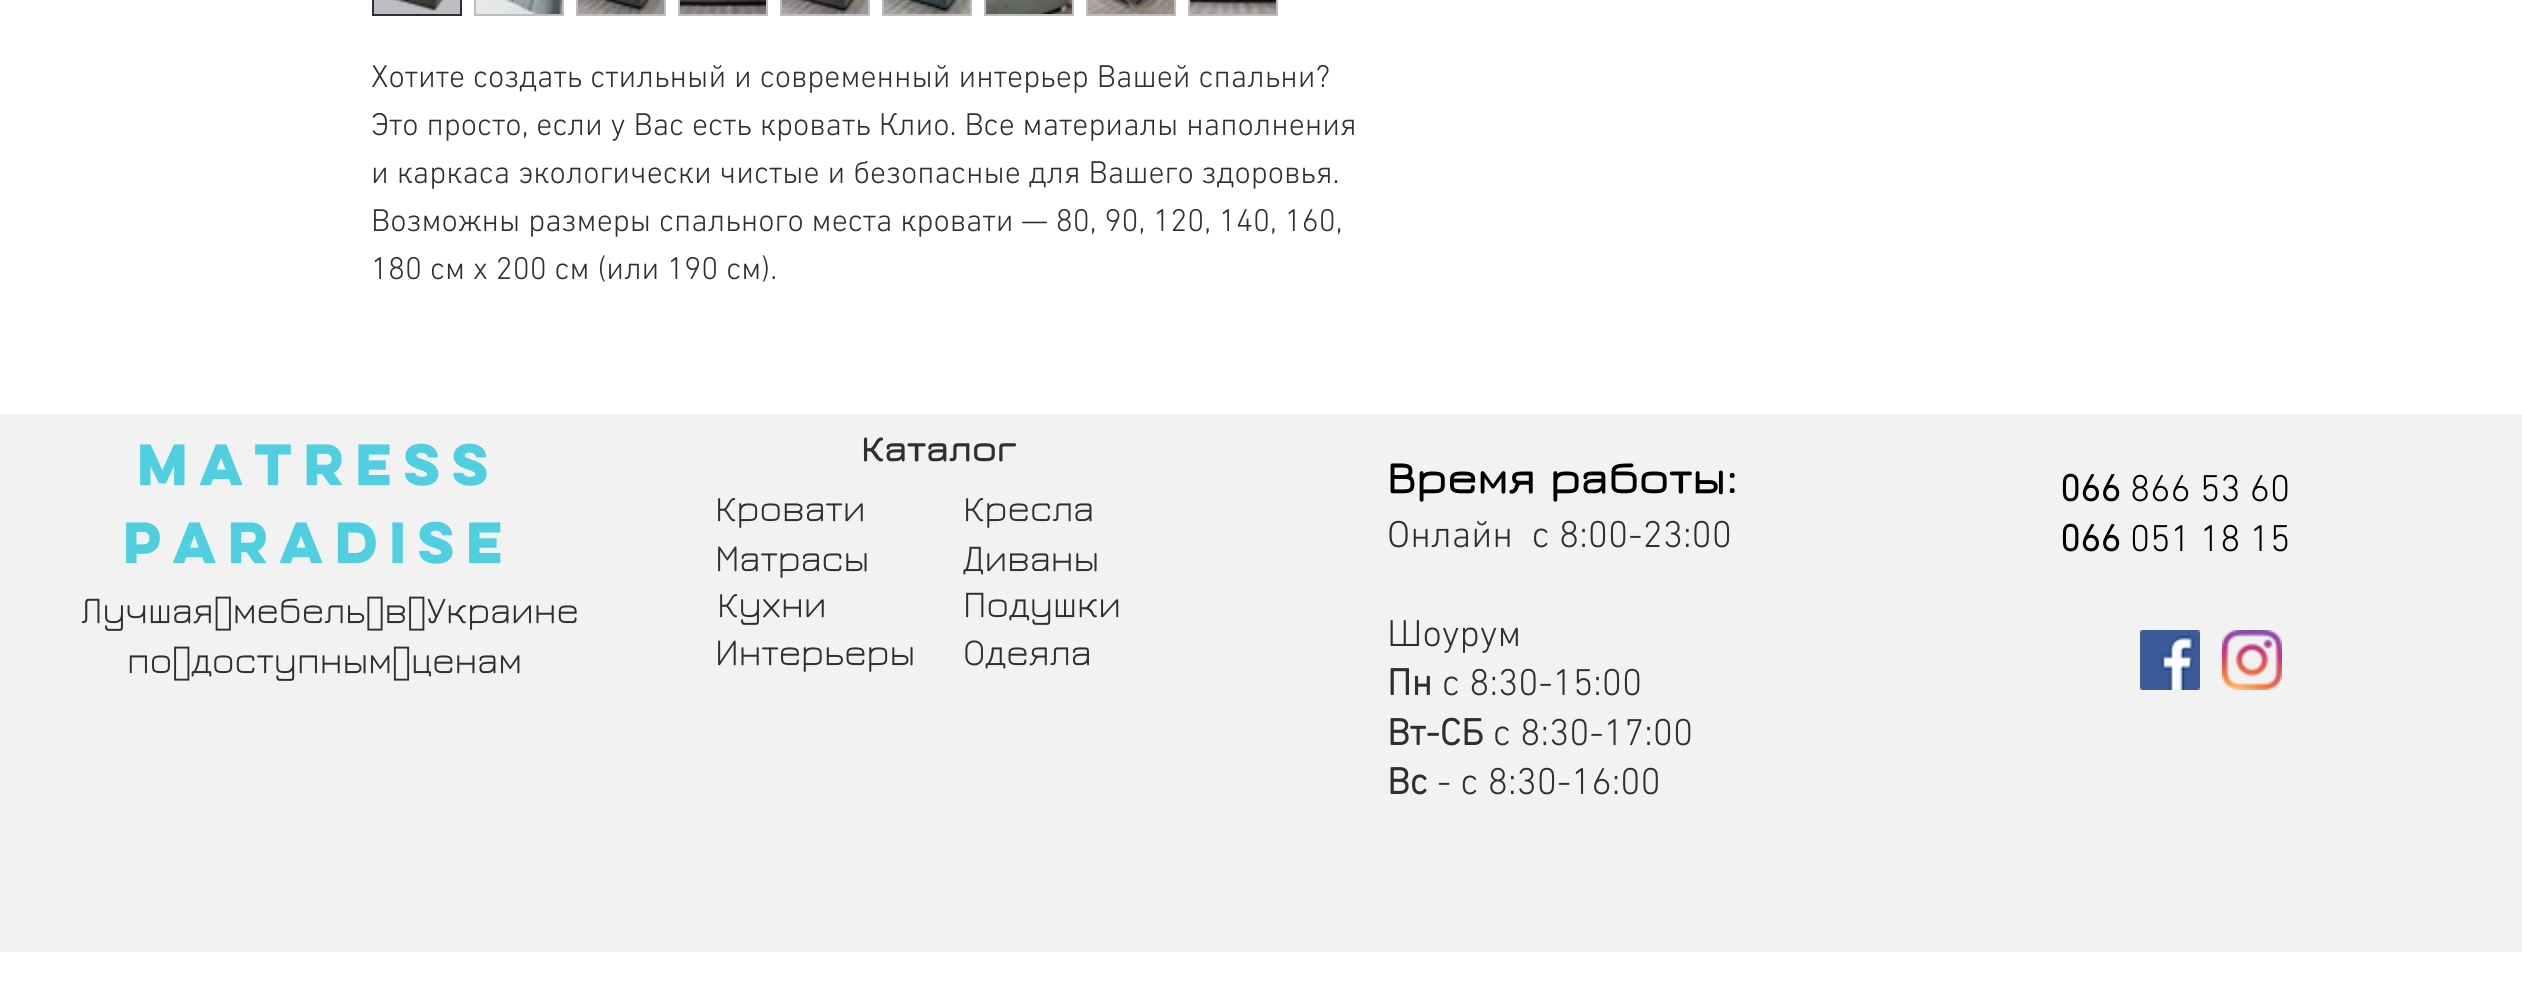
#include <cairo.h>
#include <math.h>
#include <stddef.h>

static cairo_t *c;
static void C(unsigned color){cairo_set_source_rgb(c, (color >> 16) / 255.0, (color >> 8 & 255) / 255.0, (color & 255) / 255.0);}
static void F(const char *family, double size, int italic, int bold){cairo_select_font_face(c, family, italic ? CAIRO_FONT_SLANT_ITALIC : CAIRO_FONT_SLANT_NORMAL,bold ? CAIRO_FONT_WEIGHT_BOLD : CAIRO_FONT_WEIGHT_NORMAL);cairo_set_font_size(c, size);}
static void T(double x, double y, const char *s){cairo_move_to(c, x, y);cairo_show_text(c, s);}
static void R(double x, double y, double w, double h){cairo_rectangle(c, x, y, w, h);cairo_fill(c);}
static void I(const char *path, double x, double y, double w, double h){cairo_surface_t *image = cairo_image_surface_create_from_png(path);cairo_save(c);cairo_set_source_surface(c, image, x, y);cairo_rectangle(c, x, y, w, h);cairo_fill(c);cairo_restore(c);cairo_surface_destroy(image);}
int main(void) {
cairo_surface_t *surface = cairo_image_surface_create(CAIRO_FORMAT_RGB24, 2522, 1001);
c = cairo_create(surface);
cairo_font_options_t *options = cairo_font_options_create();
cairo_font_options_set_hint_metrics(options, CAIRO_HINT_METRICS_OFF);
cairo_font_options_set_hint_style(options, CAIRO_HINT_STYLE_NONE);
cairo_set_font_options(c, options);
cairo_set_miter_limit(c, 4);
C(0xffffff);
cairo_paint(c);
C(0xbebcc2);
cairo_rectangle(c,373,-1,88,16);
cairo_fill_preserve(c);
C(0x2f2f30);
cairo_stroke(c);
I("1.png",392,0,52,11);
C(0xbebcc2);
R(474,0,90,16);
I("2.png",476,0,86,14);
R(576,0,90,16);
I("3.png",578,0,86,14);
R(678,0,90,16);
I("4.png",680,0,86,14);
R(780,0,90,16);
I("5.png",782,0,86,14);
R(882,0,90,16);
I("6.png",884,0,86,14);
R(984,0,90,16);
I("7.png",986,0,86,14);
R(1086,0,90,16);
I("8.png",1088,0,86,14);
R(1188,0,90,16);
I("9.png",1190,0,86,14);
F("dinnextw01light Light",32,0,0);
C(0x2f2f30);
T(371,87,"Хотите создать стильный и современный интерьер Вашей спальни?");
T(371,135,"Это просто, если у Вас есть кровать Клио. Все материалы наполнения");
T(371,183,"и каркаса экологически чистые и безопасные для Вашего здоровья.");
T(371,231,"Возможны размеры спального места кровати — 80, 90, 120, 140, 160,");
T(371,279,"180 см х 200 см (или 190 см).");
C(0xf2f2f2);
R(0,414,2522,538);
F("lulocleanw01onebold",52,0,1);
C(0x50cfe0);
T(137,485,"MATRESS");
T(123,563,"PARADISE");
F("Jura",38,0,0);
C(0x2f2f30);
T(81,623,"Лучшая мебель в Украине");
T(127,673,"по доступным ценам");
F("Jura",38,0,1);
T(861,461,"Каталог");
F("Jura",38,0,0);
T(715,521,"Кровати");
T(963,521,"Кресла");
T(715,571,"Матрасы");
T(963,571,"Диваны");
T(717,617,"Кухни");
T(963,617,"Подушки");
T(715,665,"Интерьеры");
T(963,665,"Одеяла");
F("Jura",46,0,1);
C(0x000000);
T(1387,493,"Время работы:");
F("dinnextw01light Light",38,0,0);
C(0x2f2f30);
T(1387,547,"Онлайн  с 8:00-23:00");
T(1387,646,"Шоурум");
F("dinnextw01light",38,0,1);
T(1387,695,"Пн");
F("dinnextw01light Light",38,0,0);
T(1442,695,"с 8:30-15:00");
F("dinnextw01light",38,0,1);
T(1387,745,"Вт-СБ");
F("dinnextw01light Light",38,0,0);
T(1493,745,"с 8:30-17:00");
F("dinnextw01light",38,0,1);
T(1387,794,"Вс");
F("dinnextw01light Light",38,0,0);
T(1437,794,"- с 8:30-16:00");
F("dinnextw01light",38,0,1);
C(0x000000);
T(2060,501,"066");
F("dinnextw01light Light",38,0,0);
T(2130,501,"866 53 60");
F("dinnextw01light",38,0,1);
T(2060,551,"066");
F("dinnextw01light Light",38,0,0);
T(2130,551,"051 18 15");
I("10.png",2140,630,60,60);
I("11.png",2222,630,60,60);
cairo_surface_write_to_png(surface, "o.png");
cairo_font_options_destroy(options);
cairo_destroy(c);
cairo_surface_destroy(surface);
return 0;
}
